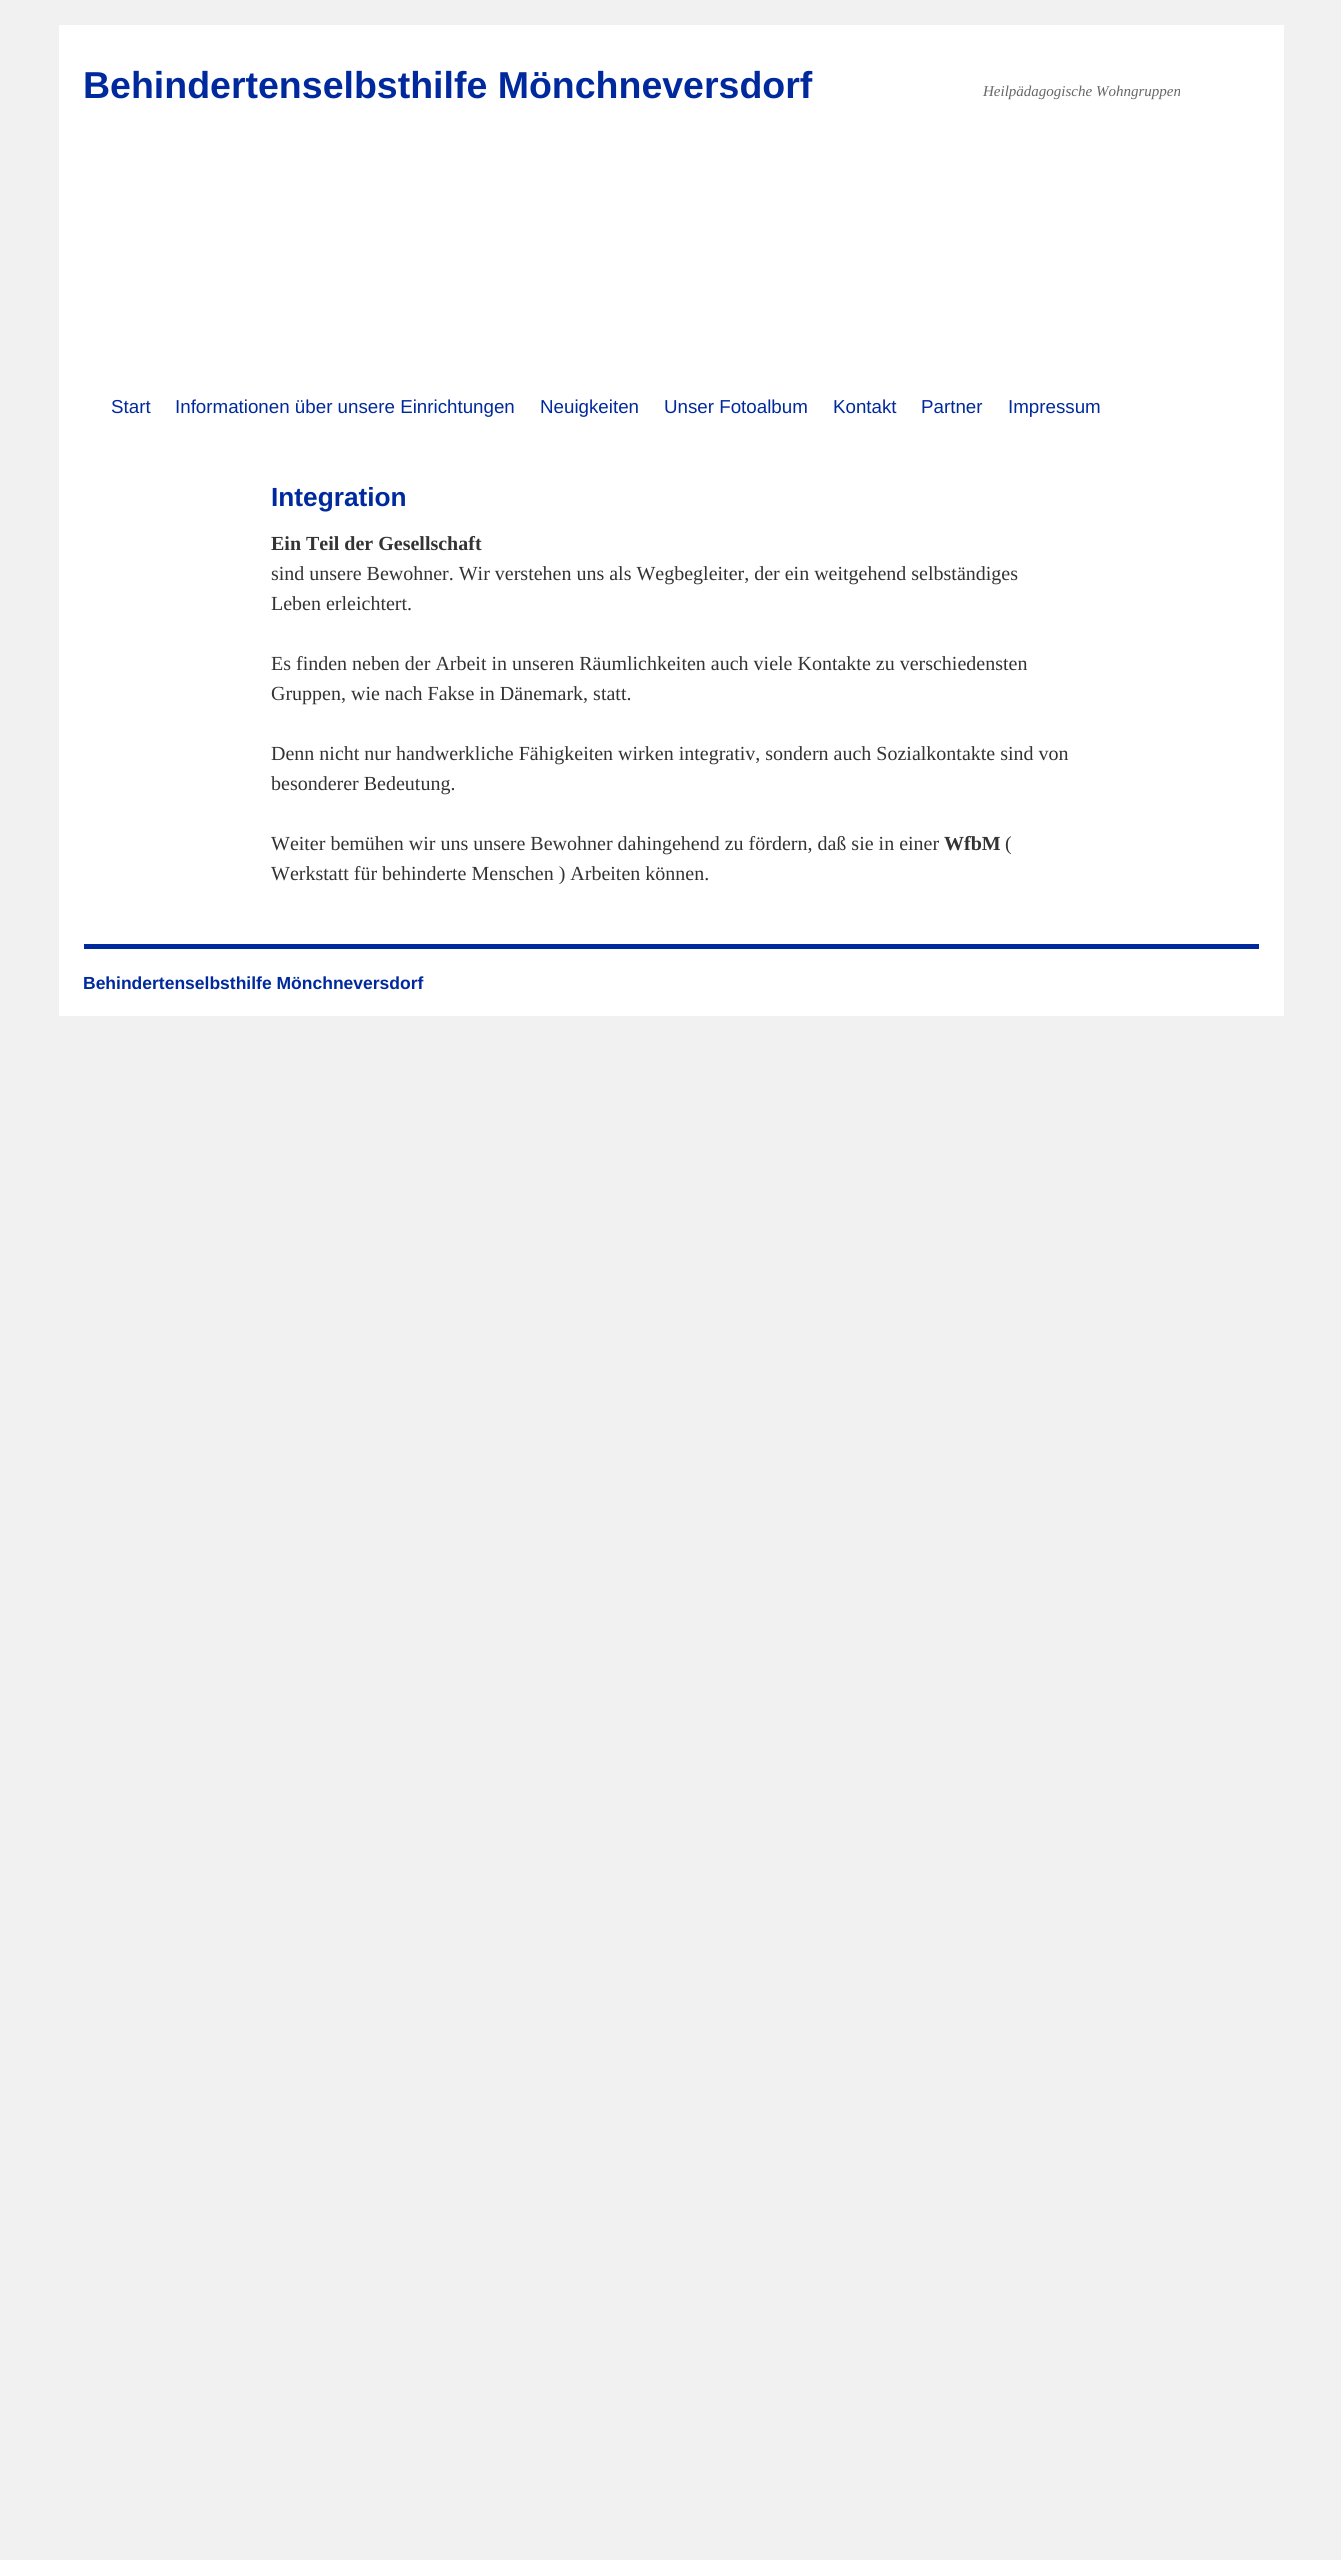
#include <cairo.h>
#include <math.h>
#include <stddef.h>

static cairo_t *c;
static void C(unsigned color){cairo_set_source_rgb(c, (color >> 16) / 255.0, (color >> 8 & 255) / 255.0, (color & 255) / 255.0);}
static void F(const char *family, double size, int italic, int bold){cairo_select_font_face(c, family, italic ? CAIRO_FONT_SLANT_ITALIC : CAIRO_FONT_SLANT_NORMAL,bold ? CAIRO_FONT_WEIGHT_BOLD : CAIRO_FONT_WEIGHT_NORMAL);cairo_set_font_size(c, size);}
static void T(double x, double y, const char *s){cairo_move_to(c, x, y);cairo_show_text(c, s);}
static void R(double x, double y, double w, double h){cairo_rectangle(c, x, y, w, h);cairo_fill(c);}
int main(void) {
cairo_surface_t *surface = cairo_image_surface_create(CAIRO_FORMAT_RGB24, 1341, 2560);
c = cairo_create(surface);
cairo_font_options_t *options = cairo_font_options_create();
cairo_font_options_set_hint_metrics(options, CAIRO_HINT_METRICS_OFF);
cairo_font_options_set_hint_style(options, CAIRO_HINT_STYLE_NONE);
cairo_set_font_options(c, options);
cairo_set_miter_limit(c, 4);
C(0xf1f1f1);
cairo_paint(c);
C(0xffffff);
R(59,25,1225,991);
F("Liberation Sans",37.5,0,1);
C(0x00299d);
T(83,98,"Behindertenselbsthilfe Mönchneversdorf");
F("Liberation Serif",15,1,0);
C(0x666666);
T(983,96,"Heilpädagogische Wohngruppen");
F("Liberation Sans",18.75,0,0);
C(0x00299d);
T(111,413,"Start");
T(175,413,"Informationen über unsere Einrichtungen");
T(540,413,"Neuigkeiten");
T(664,413,"Unser Fotoalbum");
T(833,413,"Kontakt");
T(921,413,"Partner");
T(1008,413,"Impressum");
F("Liberation Sans",26.25,0,1);
T(271,506,"Integration");
F("Liberation Serif",20,0,1);
C(0x333333);
T(271,550,"Ein Teil der Gesellschaft");
F("Liberation Serif",20,0,0);
T(271,580,"sind unsere Bewohner. Wir verstehen uns als Wegbegleiter, der ein weitgehend selbständiges");
T(271,610,"Leben erleichtert.");
T(271,670,"Es finden neben der Arbeit in unseren Räumlichkeiten auch viele Kontakte zu verschiedensten");
T(271,700,"Gruppen, wie nach Fakse in Dänemark, statt.");
T(271,760,"Denn nicht nur handwerkliche Fähigkeiten wirken integrativ, sondern auch Sozialkontakte sind von");
T(271,790,"besonderer Bedeutung.");
T(271,850,"Weiter bemühen wir uns unsere Bewohner dahingehend zu fördern, daß sie in einer");
F("Liberation Serif",20,0,1);
T(944,850,"WfbM");
F("Liberation Serif",20,0,0);
T(1005,850,"(");
T(271,880,"Werkstatt für behinderte Menschen ) Arbeiten können.");
C(0x00299d);
R(84,944,1175,5);
F("Liberation Sans",17.5,0,1);
T(83,989,"Behindertenselbsthilfe Mönchneversdorf");
cairo_surface_write_to_png(surface, "o.png");
cairo_font_options_destroy(options);
cairo_destroy(c);
cairo_surface_destroy(surface);
return 0;
}
